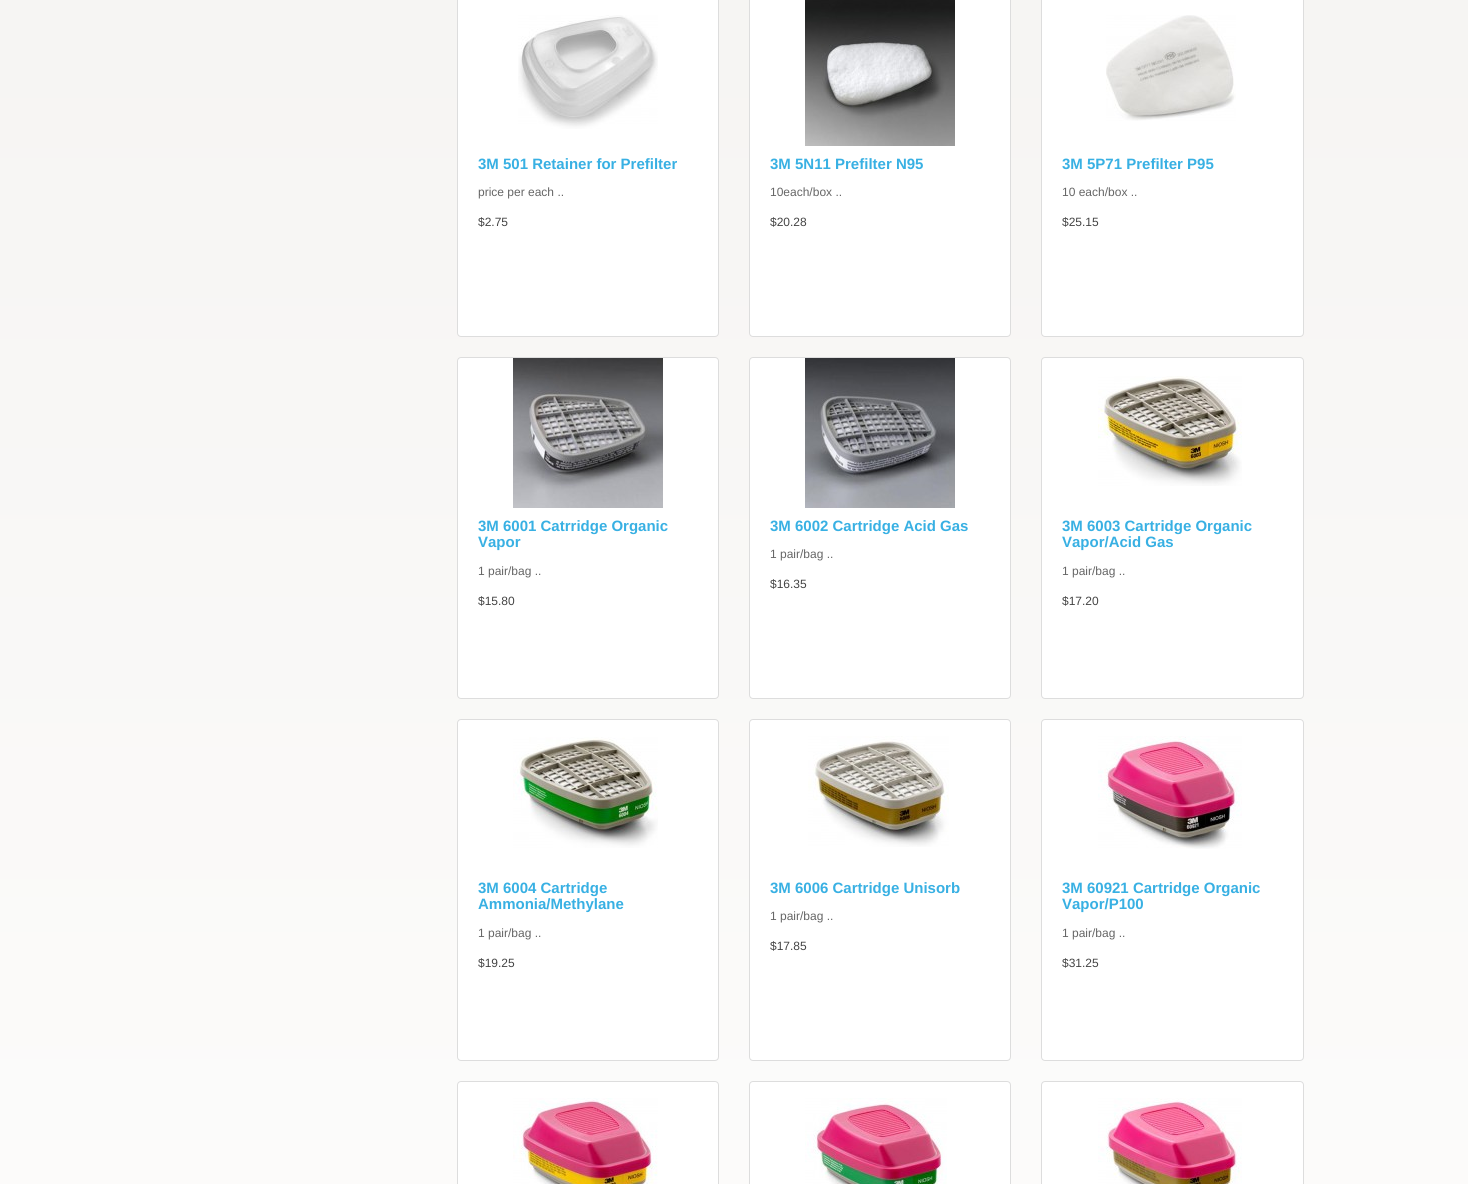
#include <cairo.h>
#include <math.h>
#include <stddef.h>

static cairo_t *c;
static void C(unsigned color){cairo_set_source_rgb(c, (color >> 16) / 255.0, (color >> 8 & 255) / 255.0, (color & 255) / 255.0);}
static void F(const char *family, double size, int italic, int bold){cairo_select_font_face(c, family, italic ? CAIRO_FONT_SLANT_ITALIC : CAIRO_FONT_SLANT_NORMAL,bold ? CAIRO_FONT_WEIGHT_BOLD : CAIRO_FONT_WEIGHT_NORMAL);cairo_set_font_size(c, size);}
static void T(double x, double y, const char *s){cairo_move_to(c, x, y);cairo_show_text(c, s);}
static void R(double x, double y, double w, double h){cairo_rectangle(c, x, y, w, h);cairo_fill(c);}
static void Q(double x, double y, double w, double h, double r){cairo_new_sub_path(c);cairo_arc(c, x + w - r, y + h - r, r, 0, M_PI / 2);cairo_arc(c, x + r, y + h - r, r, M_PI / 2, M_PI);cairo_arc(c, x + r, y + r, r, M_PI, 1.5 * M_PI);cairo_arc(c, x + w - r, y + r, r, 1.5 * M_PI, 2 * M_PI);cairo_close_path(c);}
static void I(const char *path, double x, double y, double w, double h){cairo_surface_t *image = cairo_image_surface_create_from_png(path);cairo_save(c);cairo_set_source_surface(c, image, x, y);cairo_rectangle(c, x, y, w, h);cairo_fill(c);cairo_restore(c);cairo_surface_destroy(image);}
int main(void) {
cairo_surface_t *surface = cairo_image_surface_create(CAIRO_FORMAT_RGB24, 1468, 1184);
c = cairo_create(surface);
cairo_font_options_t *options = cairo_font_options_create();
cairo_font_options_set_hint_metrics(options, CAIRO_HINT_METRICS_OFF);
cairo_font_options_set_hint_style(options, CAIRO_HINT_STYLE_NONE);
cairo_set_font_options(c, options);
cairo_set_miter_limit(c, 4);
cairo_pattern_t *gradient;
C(0xffffff);
cairo_paint(c);
gradient = cairo_pattern_create_linear(734,-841,734,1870);
cairo_pattern_add_color_stop_rgba(gradient,0,0.949,0.941,0.929,1);
cairo_pattern_add_color_stop_rgba(gradient,1,1,1,1,1);
cairo_set_source(c,gradient);
cairo_pattern_destroy(gradient);
R(0,0,1468,1184);
C(0xffffff);
Q(457.5,-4.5,261,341,3.5);
cairo_fill_preserve(c);
C(0xdddddd);
cairo_set_line_width(c,1);
cairo_stroke(c);
I("1.png",518,15,140,114);
F("Liberation Sans",15,0,1);
C(0x38b0e3);
T(478,169,"3M 501 Retainer for Prefilter");
F("Liberation Sans",12,0,0);
C(0x666666);
T(478,196,"price per each ..");
C(0x444444);
T(478,226,"$2.75");
C(0xffffff);
Q(749.5,-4.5,261,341,3.5);
cairo_fill_preserve(c);
C(0xdddddd);
cairo_stroke(c);
I("2.png",805,0,150,146);
F("Liberation Sans",15,0,1);
C(0x38b0e3);
T(770,169,"3M 5N11 Prefilter N95");
F("Liberation Sans",12,0,0);
C(0x666666);
T(770,196,"10each/box ..");
C(0x444444);
T(770,226,"$20.28");
C(0xffffff);
Q(1041.5,-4.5,262,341,3.5);
cairo_fill_preserve(c);
C(0xdddddd);
cairo_stroke(c);
I("3.png",1106,15,130,106);
F("Liberation Sans",15,0,1);
C(0x38b0e3);
T(1062,169,"3M 5P71 Prefilter P95");
F("Liberation Sans",12,0,0);
C(0x666666);
T(1062,196,"10 each/box ..");
C(0x444444);
T(1062,226,"$25.15");
C(0xffffff);
Q(457.5,357.5,261,341,3.5);
cairo_fill_preserve(c);
C(0xdddddd);
cairo_stroke(c);
I("4.png",513,358,150,150);
F("Liberation Sans",15,0,1);
C(0x38b0e3);
T(478,531,"3M 6001 Catrridge Organic");
T(478,547,"Vapor");
F("Liberation Sans",12,0,0);
C(0x666666);
T(478,575,"1 pair/bag ..");
C(0x444444);
T(478,605,"$15.80");
C(0xffffff);
Q(749.5,357.5,261,341,3.5);
cairo_fill_preserve(c);
C(0xdddddd);
cairo_stroke(c);
I("5.png",805,358,150,150);
F("Liberation Sans",15,0,1);
C(0x38b0e3);
T(770,531,"3M 6002 Cartridge Acid Gas");
F("Liberation Sans",12,0,0);
C(0x666666);
T(770,558,"1 pair/bag ..");
C(0x444444);
T(770,588,"$16.35");
C(0xffffff);
Q(1041.5,357.5,262,341,3.5);
cairo_fill_preserve(c);
C(0xdddddd);
cairo_stroke(c);
I("6.png",1098,376,144,110);
F("Liberation Sans",15,0,1);
C(0x38b0e3);
T(1062,531,"3M 6003 Cartridge Organic");
T(1062,547,"Vapor/Acid Gas");
F("Liberation Sans",12,0,0);
C(0x666666);
T(1062,575,"1 pair/bag ..");
C(0x444444);
T(1062,605,"$17.20");
C(0xffffff);
Q(457.5,719.5,261,341,3.5);
cairo_fill_preserve(c);
C(0xdddddd);
cairo_stroke(c);
I("7.png",513,737,145,111);
F("Liberation Sans",15,0,1);
C(0x38b0e3);
T(478,893,"3M 6004 Cartridge");
T(478,909,"Ammonia/Methylane");
F("Liberation Sans",12,0,0);
C(0x666666);
T(478,937,"1 pair/bag ..");
C(0x444444);
T(478,967,"$19.25");
C(0xffffff);
Q(749.5,719.5,261,341,3.5);
cairo_fill_preserve(c);
C(0xdddddd);
cairo_stroke(c);
I("8.png",808,736,141,111);
F("Liberation Sans",15,0,1);
C(0x38b0e3);
T(770,893,"3M 6006 Cartridge Unisorb");
F("Liberation Sans",12,0,0);
C(0x666666);
T(770,920,"1 pair/bag ..");
C(0x444444);
T(770,950,"$17.85");
C(0xffffff);
Q(1041.5,719.5,262,341,3.5);
cairo_fill_preserve(c);
C(0xdddddd);
cairo_stroke(c);
I("9.png",1098,736,144,113);
F("Liberation Sans",15,0,1);
C(0x38b0e3);
T(1062,893,"3M 60921 Cartridge Organic");
T(1062,909,"Vapor/P100");
F("Liberation Sans",12,0,0);
C(0x666666);
T(1062,937,"1 pair/bag ..");
C(0x444444);
T(1062,967,"$31.25");
C(0xffffff);
Q(457.5,1081.5,261,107,3.5);
cairo_fill_preserve(c);
C(0xdddddd);
cairo_stroke(c);
I("10.png",513,1098,145,86);
C(0xffffff);
Q(749.5,1081.5,261,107,3.5);
cairo_fill_preserve(c);
C(0xdddddd);
cairo_stroke(c);
I("11.png",805,1098,142,86);
C(0xffffff);
Q(1041.5,1081.5,262,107,3.5);
cairo_fill_preserve(c);
C(0xdddddd);
cairo_stroke(c);
I("12.png",1098,1098,144,86);
cairo_surface_write_to_png(surface, "o.png");
cairo_font_options_destroy(options);
cairo_destroy(c);
cairo_surface_destroy(surface);
return 0;
}
